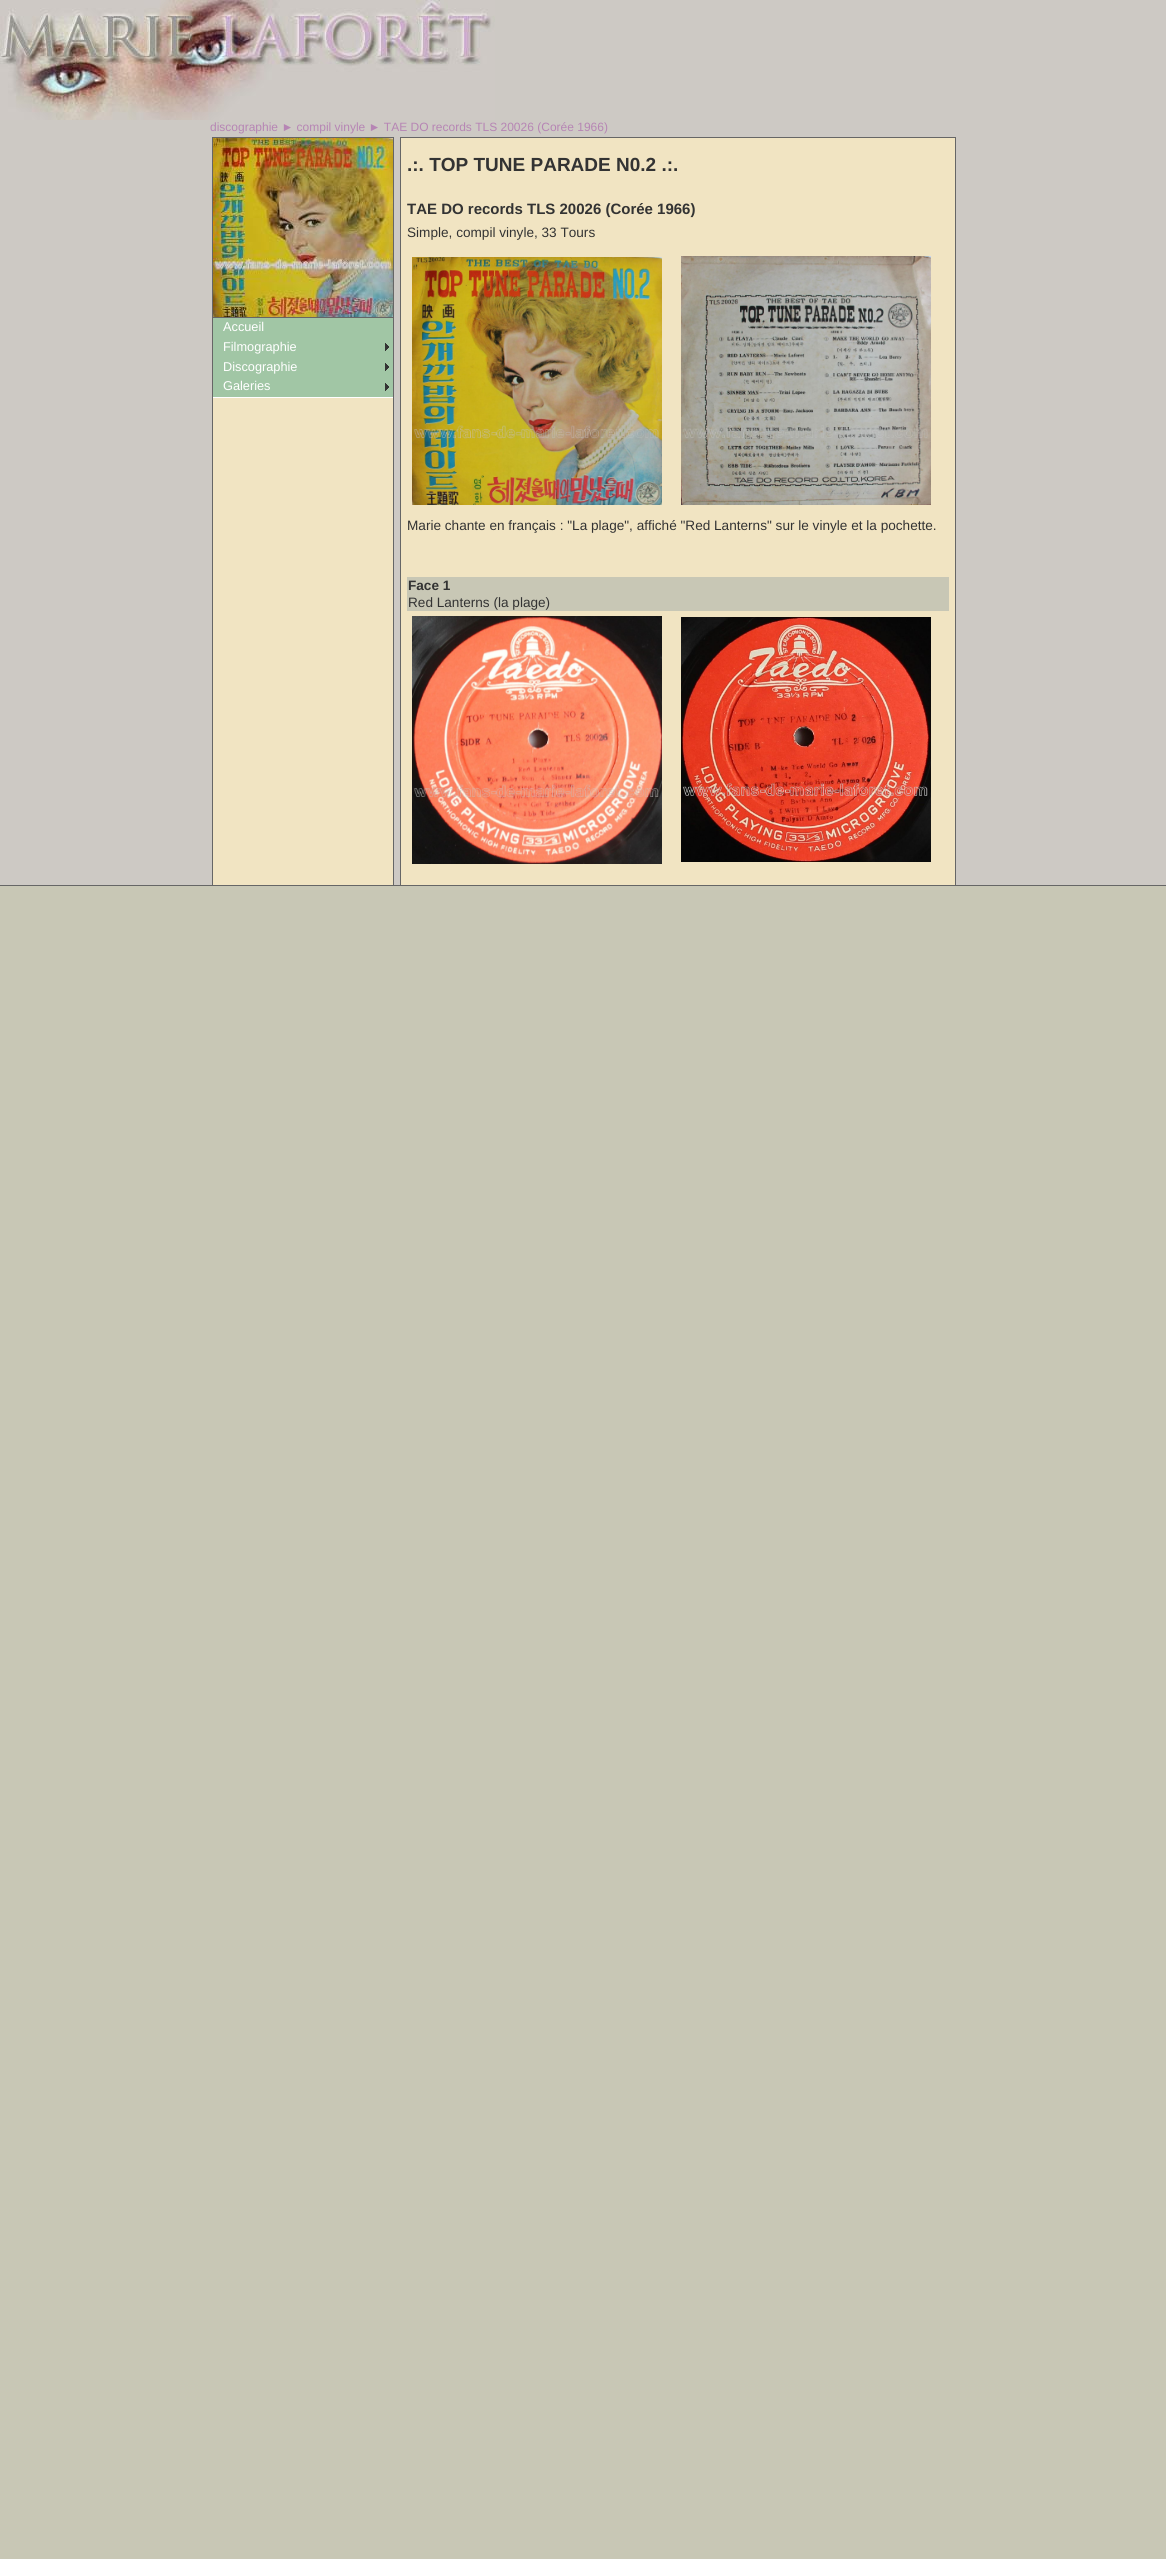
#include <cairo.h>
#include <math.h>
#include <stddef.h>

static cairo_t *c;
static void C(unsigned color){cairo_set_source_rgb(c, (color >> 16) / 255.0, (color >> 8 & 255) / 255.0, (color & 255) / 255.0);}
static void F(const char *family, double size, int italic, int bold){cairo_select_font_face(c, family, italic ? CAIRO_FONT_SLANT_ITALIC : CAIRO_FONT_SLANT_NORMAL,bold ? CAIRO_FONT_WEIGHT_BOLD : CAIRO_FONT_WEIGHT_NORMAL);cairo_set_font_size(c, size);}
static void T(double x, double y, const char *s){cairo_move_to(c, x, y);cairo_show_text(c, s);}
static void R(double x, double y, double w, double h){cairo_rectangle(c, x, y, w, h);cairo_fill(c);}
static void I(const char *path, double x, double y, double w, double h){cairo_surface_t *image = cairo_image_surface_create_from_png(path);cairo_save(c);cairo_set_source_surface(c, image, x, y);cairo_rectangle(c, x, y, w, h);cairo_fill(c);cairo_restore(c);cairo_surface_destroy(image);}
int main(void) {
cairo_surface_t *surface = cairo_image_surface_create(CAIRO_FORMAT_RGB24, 1166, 2559);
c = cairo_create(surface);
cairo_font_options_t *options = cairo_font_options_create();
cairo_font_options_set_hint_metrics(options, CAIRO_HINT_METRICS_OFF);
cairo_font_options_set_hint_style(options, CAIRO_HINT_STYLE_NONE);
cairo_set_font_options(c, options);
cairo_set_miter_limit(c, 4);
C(0xc8c7b5);
cairo_paint(c);
C(0xcdc9c4);
R(0,0,1166,885);
I("1.png",0,0,495,120);
F("Liberation Sans",12,0,0);
C(0xb685b4);
T(210,131,"discographie ► compil vinyle ► TAE DO records TLS 20026 (Corée 1966)");
C(0xf1e4c2);
R(213,398,180,487);
C(0x666666);
R(0,885,1166,1);
cairo_rectangle(c,212.5,137.5,181,748);
cairo_set_line_width(c,1);
cairo_stroke(c);
I("2.png",213,138,180,179);
R(213,317,180,1);
C(0xffffff);
R(213,397,180,1);
C(0xa1c6a5);
R(213,318,180,79);
F("Liberation Sans",12.75,0,0);
C(0xffffff);
T(223,331,"Accueil");
I("3.png",385,343,4,8);
T(223,351,"Filmographie");
I("3.png",385,363,4,8);
T(223,371,"Discographie");
I("3.png",385,383,4,8);
T(223,390,"Galeries");
C(0xf1e4c2);
cairo_rectangle(c,400.5,137.5,555,748);
cairo_fill_preserve(c);
C(0x666666);
cairo_stroke(c);
F("Liberation Sans",19,0,1);
C(0x333333);
T(407,171,".:. TOP TUNE PARADE N0.2 .:.");
F("Liberation Sans",15,0,1);
T(407,214,"TAE DO records TLS 20026 (Corée 1966)");
F("Liberation Sans",13.6,0,0);
T(407,237,"Simple, compil vinyle, 33 Tours");
I("4.png",412,257,250,248);
I("5.png",681,256,250,249);
T(407,530,"Marie chante en français : \"La plage\", affiché \"Red Lanterns\" sur le vinyle et la pochette.");
C(0xc8c7b5);
R(407,577,542,34);
F("Liberation Sans",13.6,0,1);
C(0x333333);
T(408,590,"Face 1");
F("Liberation Sans",13.6,0,0);
T(408,607,"Red Lanterns (la plage)");
I("6.png",412,616,250,248);
I("7.png",681,617,250,245);
cairo_surface_write_to_png(surface, "o.png");
cairo_font_options_destroy(options);
cairo_destroy(c);
cairo_surface_destroy(surface);
return 0;
}
